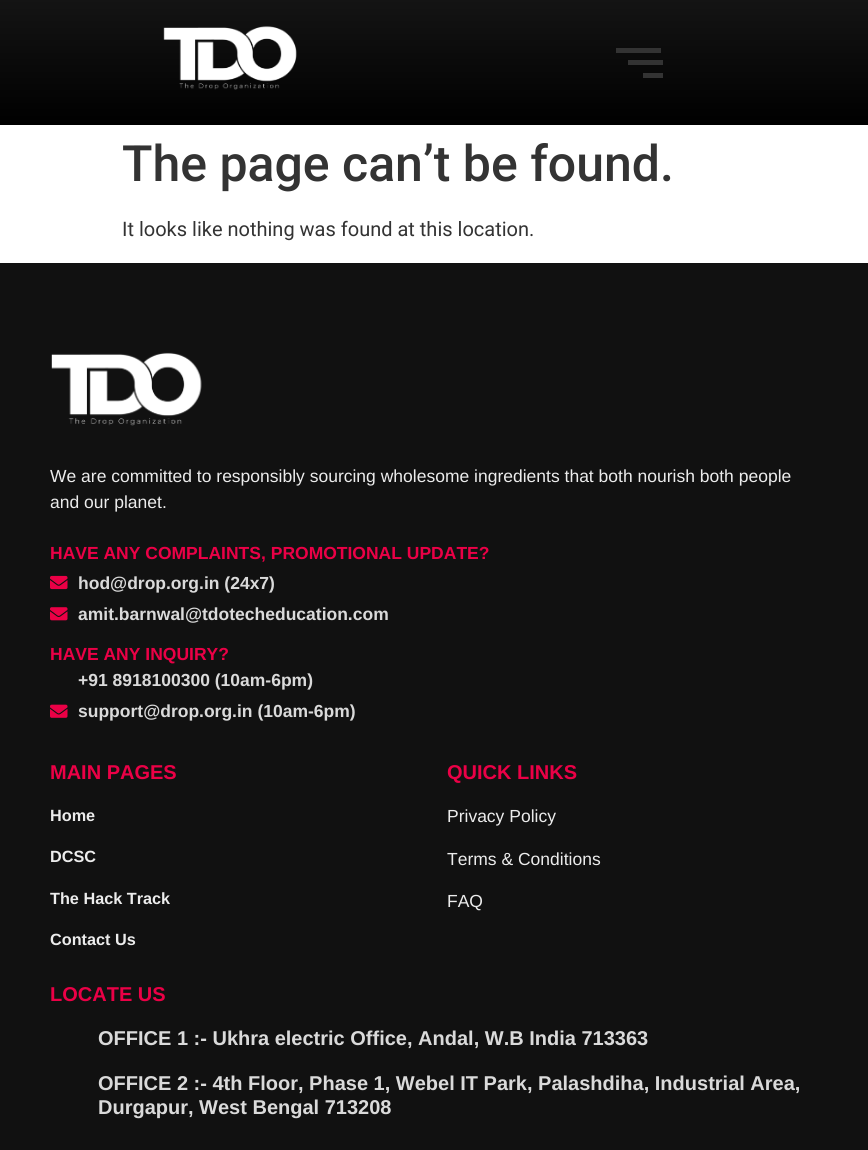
#include <cairo.h>
#include <math.h>
#include <stddef.h>

static cairo_t *c;
static void C(unsigned color){cairo_set_source_rgb(c, (color >> 16) / 255.0, (color >> 8 & 255) / 255.0, (color & 255) / 255.0);}
static void F(const char *family, double size, int italic, int bold){cairo_select_font_face(c, family, italic ? CAIRO_FONT_SLANT_ITALIC : CAIRO_FONT_SLANT_NORMAL,bold ? CAIRO_FONT_WEIGHT_BOLD : CAIRO_FONT_WEIGHT_NORMAL);cairo_set_font_size(c, size);}
static void T(double x, double y, const char *s){cairo_move_to(c, x, y);cairo_show_text(c, s);}
static void R(double x, double y, double w, double h){cairo_rectangle(c, x, y, w, h);cairo_fill(c);}
static void I(const char *path, double x, double y, double w, double h){cairo_surface_t *image = cairo_image_surface_create_from_png(path);cairo_save(c);cairo_set_source_surface(c, image, x, y);cairo_rectangle(c, x, y, w, h);cairo_fill(c);cairo_restore(c);cairo_surface_destroy(image);}
int main(void) {
cairo_surface_t *surface = cairo_image_surface_create(CAIRO_FORMAT_RGB24, 868, 1150);
c = cairo_create(surface);
cairo_font_options_t *options = cairo_font_options_create();
cairo_font_options_set_hint_metrics(options, CAIRO_HINT_METRICS_OFF);
cairo_font_options_set_hint_style(options, CAIRO_HINT_STYLE_NONE);
cairo_set_font_options(c, options);
cairo_set_miter_limit(c, 4);
cairo_pattern_t *gradient;
C(0xffffff);
cairo_paint(c);
gradient = cairo_pattern_create_linear(434,0,434,125);
cairo_pattern_add_color_stop_rgba(gradient,0,0.078,0.078,0.078,1);
cairo_pattern_add_color_stop_rgba(gradient,1,0,0,0,1);
cairo_set_source(c,gradient);
cairo_pattern_destroy(gradient);
R(0,0,868,125);
I("1.png",163,26,134,64);
C(0x333333);
R(616,48,45,5);
R(628,60,35,5);
R(643,73,20,5);
F("Roboto Medium",50,0,0);
T(122,181,"The page can’t be found.");
F("Roboto",20,0,0);
T(122,236,"It looks like nothing was found at this location.");
C(0x111111);
R(0,263,868,887);
I("2.png",51,352,151,74);
F("Liberation Sans",17.5,0,0);
C(0xececec);
T(50,482,"We are committed to responsibly sourcing wholesome ingredients that both nourish both people");
T(50,508,"and our planet.");
F("Liberation Sans",17.5,0,1);
C(0xeb0046);
T(50,559,"HAVE ANY COMPLAINTS, PROMOTIONAL UPDATE?");
I("3.png",50,575,18,15);
C(0xdadada);
T(78,589,"hod@drop.org.in (24x7)");
I("4.png",50,607,18,14);
T(78,620,"amit.barnwal@tdotecheducation.com");
C(0xeb0046);
T(50,660,"HAVE ANY INQUIRY?");
C(0xdadada);
T(78,686,"+91 8918100300 (10am-6pm)");
I("5.png",50,704,18,14);
T(78,717,"support@drop.org.in (10am-6pm)");
F("Liberation Sans",20,0,1);
C(0xeb0046);
T(50,779,"MAIN PAGES");
F("Liberation Sans",16.25,0,1);
C(0xececec);
T(50,821,"Home");
T(50,862,"DCSC");
T(50,904,"The Hack Track");
T(50,945,"Contact Us");
F("Liberation Sans",20,0,1);
C(0xeb0046);
T(447,779,"QUICK LINKS");
F("Liberation Sans",17.5,0,0);
C(0xececec);
T(447,822,"Privacy Policy");
T(447,865,"Terms & Conditions");
T(447,907,"FAQ");
F("Liberation Sans",20,0,1);
C(0xeb0046);
T(50,1001,"LOCATE US");
C(0xdadada);
T(98,1045,"OFFICE 1 :- Ukhra electric Office, Andal, W.B India 713363");
T(98,1090,"OFFICE 2 :- 4th Floor, Phase 1, Webel IT Park, Palashdiha, Industrial Area,");
T(98,1114,"Durgapur, West Bengal 713208");
cairo_surface_write_to_png(surface, "o.png");
cairo_font_options_destroy(options);
cairo_destroy(c);
cairo_surface_destroy(surface);
return 0;
}
